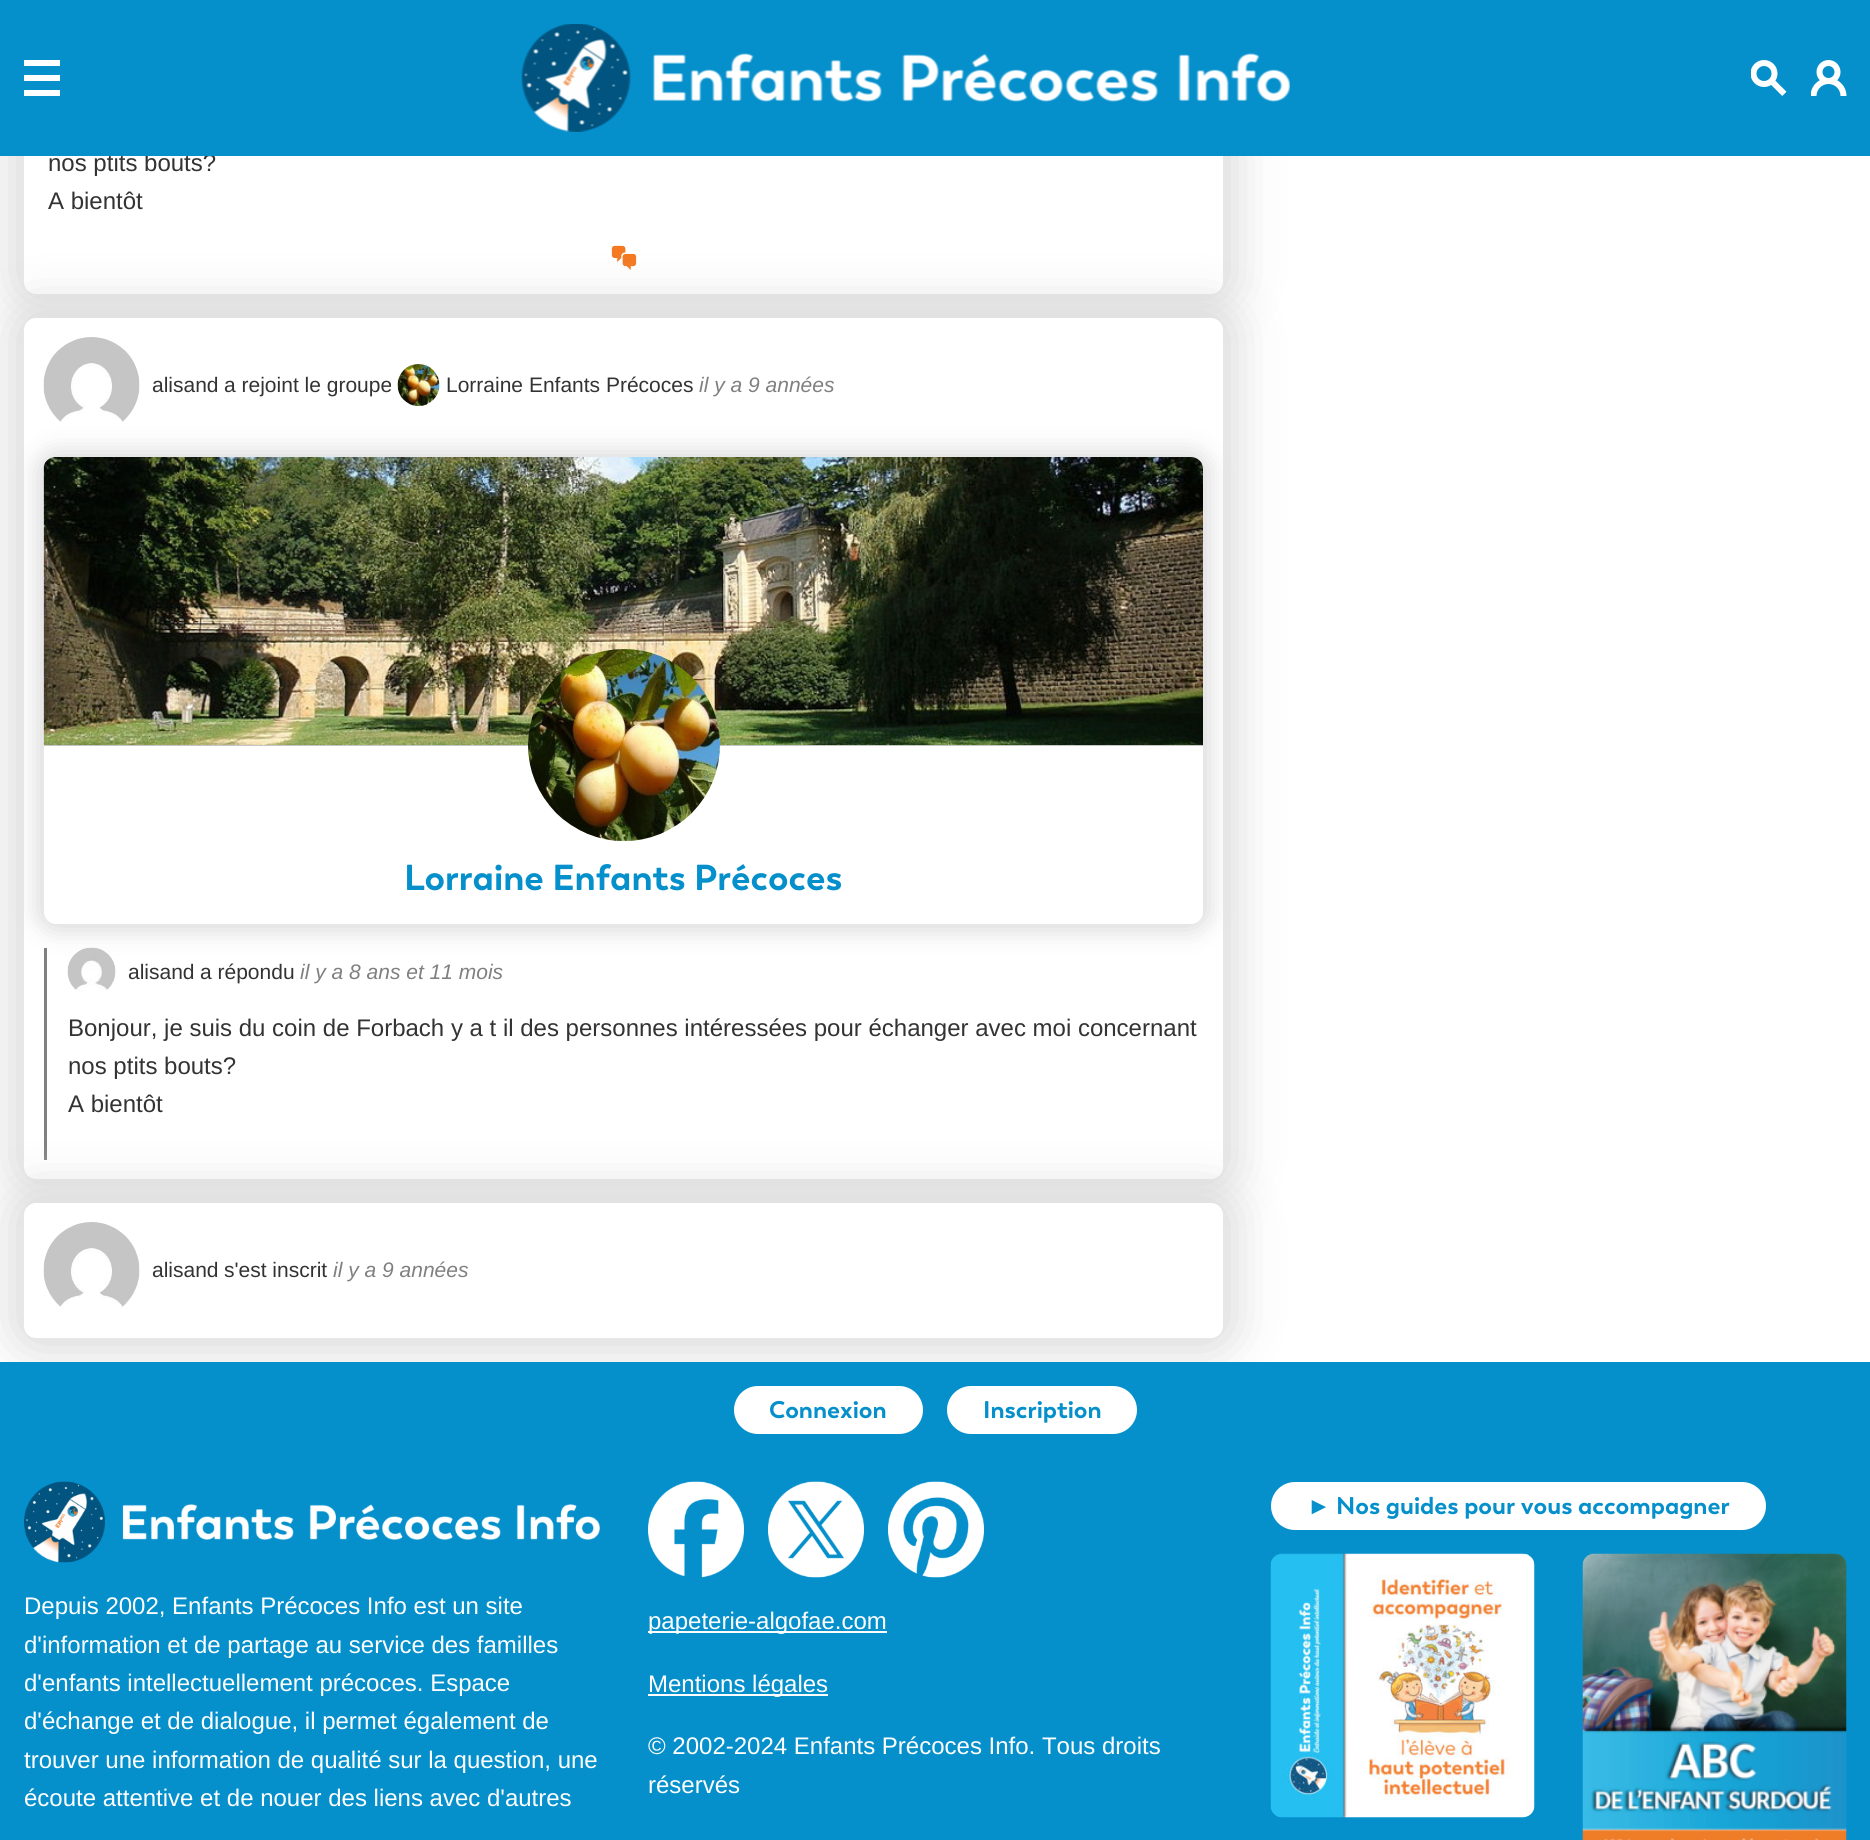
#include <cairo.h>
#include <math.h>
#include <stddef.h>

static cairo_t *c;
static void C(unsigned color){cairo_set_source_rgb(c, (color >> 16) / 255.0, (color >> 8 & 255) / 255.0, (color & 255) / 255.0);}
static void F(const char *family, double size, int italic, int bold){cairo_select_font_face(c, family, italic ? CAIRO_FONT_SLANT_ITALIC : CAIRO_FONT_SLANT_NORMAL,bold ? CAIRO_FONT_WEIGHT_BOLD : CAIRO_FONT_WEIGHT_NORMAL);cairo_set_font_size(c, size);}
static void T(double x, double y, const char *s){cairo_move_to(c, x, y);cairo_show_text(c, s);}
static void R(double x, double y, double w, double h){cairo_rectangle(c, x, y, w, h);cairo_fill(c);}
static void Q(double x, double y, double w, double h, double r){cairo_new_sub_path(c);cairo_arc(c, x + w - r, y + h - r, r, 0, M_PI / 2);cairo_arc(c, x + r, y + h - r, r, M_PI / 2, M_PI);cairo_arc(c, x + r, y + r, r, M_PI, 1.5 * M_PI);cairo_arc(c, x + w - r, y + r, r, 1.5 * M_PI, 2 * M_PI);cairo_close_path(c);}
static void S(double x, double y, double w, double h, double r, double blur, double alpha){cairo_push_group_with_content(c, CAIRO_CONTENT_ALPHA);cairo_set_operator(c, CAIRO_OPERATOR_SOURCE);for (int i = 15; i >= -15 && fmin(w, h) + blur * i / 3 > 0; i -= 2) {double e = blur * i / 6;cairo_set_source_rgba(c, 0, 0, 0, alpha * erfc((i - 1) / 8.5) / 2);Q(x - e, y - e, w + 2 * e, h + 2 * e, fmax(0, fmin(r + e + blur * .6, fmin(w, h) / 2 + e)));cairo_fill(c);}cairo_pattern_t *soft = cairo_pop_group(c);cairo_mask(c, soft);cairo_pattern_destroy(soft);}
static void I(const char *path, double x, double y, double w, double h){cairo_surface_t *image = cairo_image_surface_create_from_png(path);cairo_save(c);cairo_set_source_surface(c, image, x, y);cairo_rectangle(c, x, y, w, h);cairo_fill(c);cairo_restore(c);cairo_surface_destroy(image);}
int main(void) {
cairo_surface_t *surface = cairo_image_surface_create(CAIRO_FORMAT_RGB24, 1870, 1840);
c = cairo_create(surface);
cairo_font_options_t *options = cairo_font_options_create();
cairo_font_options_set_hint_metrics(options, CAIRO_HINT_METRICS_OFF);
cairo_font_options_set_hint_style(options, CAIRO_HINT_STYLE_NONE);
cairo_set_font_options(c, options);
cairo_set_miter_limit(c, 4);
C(0xffffff);
cairo_paint(c);
C(0xd9d9d9);
S(12,-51,1223,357,24,24,1);
C(0xffffff);
Q(24,-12,1199,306,12);
cairo_fill(c);
F("Liberation Sans",24,0,0);
C(0x333333);
T(48,171,"nos ptits bouts?");
C(0x0590cc);
R(0,0,1870,156);
C(0xffffff);
R(24,60,36,6);
R(24,75,36,6);
R(24,90,36,6);
I("1.png",521,24,769,108);
I("2.png",1751,60,36,36);
I("3.png",1811,60,36,36);
C(0x333333);
T(48,209,"A bientôt");
I("4.png",611,245,26,25);
C(0xd9d9d9);
S(12,306,1223,885,24,24,1);
C(0xffffff);
Q(24,318,1199,861,12);
cairo_fill(c);
I("5.png",43,337,97,86);
F("Liberation Sans",21,0,0);
C(0x333333);
T(152,392,"alisand");
T(224,392,"a rejoint le groupe");
I("6.png",397,364,43,42);
T(446,392,"Lorraine Enfants Précoces");
F("Liberation Sans",21,1,0);
C(0x808080);
T(699,392,"il y a 9 années");
cairo_save(c);
cairo_set_fill_rule(c,CAIRO_FILL_RULE_EVEN_ODD);
cairo_new_path(c);
cairo_move_to(c,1,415);
cairo_line_to(c,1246,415);
cairo_line_to(c,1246,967);
cairo_line_to(c,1,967);
cairo_close_path(c);
cairo_move_to(c,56,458);
cairo_line_to(c,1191,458);
cairo_curve_to(c,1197.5,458,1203,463.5,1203,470);
cairo_line_to(c,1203,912);
cairo_curve_to(c,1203,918.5,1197.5,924,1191,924);
cairo_line_to(c,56,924);
cairo_curve_to(c,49.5,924,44,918.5,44,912);
cairo_line_to(c,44,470);
cairo_curve_to(c,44,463.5,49.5,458,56,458);
cairo_close_path(c);
cairo_clip(c);
C(0xd9d9d9);
S(38,452,1171,478,18,12,1);
cairo_restore(c);
C(0xc5c5c5);
cairo_new_path(c);
cairo_move_to(c,56,458);
cairo_line_to(c,1191,458);
cairo_curve_to(c,1197.5,458,1203,463.5,1203,470);
cairo_line_to(c,1203,746);
cairo_line_to(c,44,746);
cairo_line_to(c,44,470);
cairo_curve_to(c,44,463.5,49.5,458,56,458);
cairo_close_path(c);
cairo_fill(c);
I("7.png",43,457,1160,288);
cairo_set_source_rgba(c,1,1,1,0.8);
cairo_arc(c,624,746,96,0,2 * M_PI);
cairo_fill(c);
I("8.png",528,649,192,192);
F("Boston",36,0,1);
C(0x0590cc);
T(404,890,"Lorraine Enfants Précoces");
C(0x808080);
R(44,948,3,212);
I("9.png",67,947,49,45);
F("Liberation Sans",21,0,0);
C(0x333333);
T(128,979,"alisand");
T(200,979,"a répondu");
F("Liberation Sans",21,1,0);
C(0x808080);
T(300,979,"il y a 8 ans et 11 mois");
F("Liberation Sans",24,0,0);
C(0x333333);
T(68,1036,"Bonjour, je suis du coin de Forbach y a t il des personnes intéressées pour échanger avec moi concernant");
T(68,1074,"nos ptits bouts?");
T(68,1112,"A bientôt");
C(0xd9d9d9);
S(12,1191,1223,159,24,24,1);
C(0xffffff);
Q(24,1203,1199,135,12);
cairo_fill(c);
I("10.png",43,1222,97,86);
F("Liberation Sans",21,0,0);
C(0x333333);
T(152,1277,"alisand");
T(224,1277,"s'est inscrit");
F("Liberation Sans",21,1,0);
C(0x808080);
T(333,1277,"il y a 9 années");
C(0x0590cc);
R(0,1362,1870,96);
C(0xffffff);
Q(734,1386,189,48,24);
cairo_fill(c);
F("Boston",24,0,1);
C(0x0590cc);
T(769,1418,"Connexion");
C(0xffffff);
Q(947,1386,190,48,24);
cairo_fill(c);
C(0x0590cc);
T(983,1418,"Inscription");
R(0,1458,1870,382);
C(0xffffff);
Q(1271,1482,495,48,24);
cairo_fill(c);
F("Liberation Sans",24,0,1);
C(0x0590cc);
T(1307,1514,"►");
F("Boston",24,0,1);
T(1336,1514,"Nos guides pour vous accompagner");
I("11.png",1270,1553,265,265);
I("12.png",1582,1553,265,287);
I("13.png",24,1481,576,82);
F("Liberation Sans",24,0,0);
C(0xffffff);
T(24,1614,"Depuis 2002, Enfants Précoces Info est un site");
T(24,1653,"d'information et de partage au service des familles");
T(24,1691,"d'enfants intellectuellement précoces. Espace");
T(24,1729,"d'échange et de dialogue, il permet également de");
T(24,1768,"trouver une information de qualité sur la question, une");
T(24,1806,"écoute attentive et de nouer des liens avec d'autres");
I("14.png",648,1481,96,97);
I("15.png",768,1481,96,97);
I("16.png",888,1481,96,97);
R(648,1631,239,2);
T(648,1629,"papeterie-algofae.com");
R(648,1694,180,2);
T(648,1692,"Mentions légales");
T(648,1754,"© 2002-2024 Enfants Précoces Info. Tous droits");
T(648,1793,"réservés");
cairo_surface_write_to_png(surface, "o.png");
cairo_font_options_destroy(options);
cairo_destroy(c);
cairo_surface_destroy(surface);
return 0;
}
